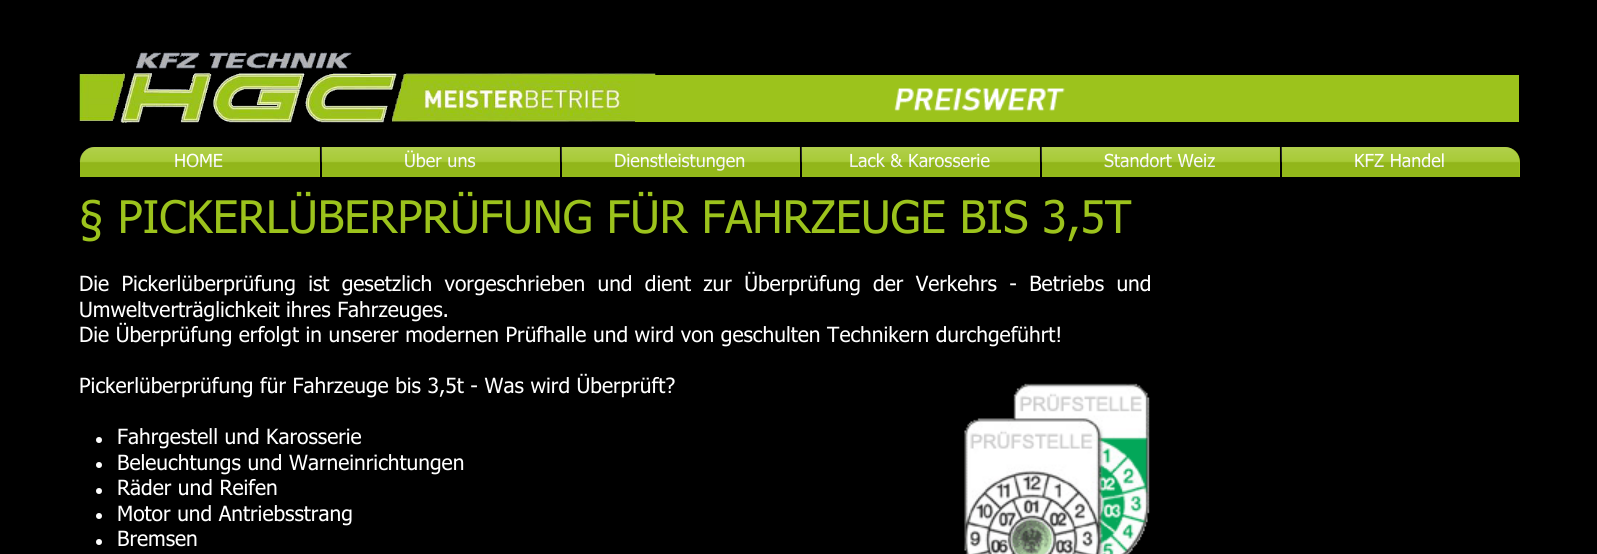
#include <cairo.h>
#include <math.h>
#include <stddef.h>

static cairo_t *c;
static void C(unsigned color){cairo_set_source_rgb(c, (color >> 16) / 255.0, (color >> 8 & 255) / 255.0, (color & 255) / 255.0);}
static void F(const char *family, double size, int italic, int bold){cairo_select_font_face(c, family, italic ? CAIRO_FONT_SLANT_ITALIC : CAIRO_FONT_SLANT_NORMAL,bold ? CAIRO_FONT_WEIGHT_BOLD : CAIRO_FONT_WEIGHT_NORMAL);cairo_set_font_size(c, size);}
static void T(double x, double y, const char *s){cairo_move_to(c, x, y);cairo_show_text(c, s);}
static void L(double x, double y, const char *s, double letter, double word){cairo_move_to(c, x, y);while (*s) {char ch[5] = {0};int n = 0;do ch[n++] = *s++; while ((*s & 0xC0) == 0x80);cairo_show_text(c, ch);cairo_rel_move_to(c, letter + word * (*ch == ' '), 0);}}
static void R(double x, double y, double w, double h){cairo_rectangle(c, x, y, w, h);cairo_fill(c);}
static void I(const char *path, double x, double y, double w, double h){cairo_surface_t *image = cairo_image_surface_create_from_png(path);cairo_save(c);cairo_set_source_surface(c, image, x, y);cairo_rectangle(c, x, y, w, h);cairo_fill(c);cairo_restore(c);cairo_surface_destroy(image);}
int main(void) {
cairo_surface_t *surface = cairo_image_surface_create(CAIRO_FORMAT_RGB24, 1597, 554);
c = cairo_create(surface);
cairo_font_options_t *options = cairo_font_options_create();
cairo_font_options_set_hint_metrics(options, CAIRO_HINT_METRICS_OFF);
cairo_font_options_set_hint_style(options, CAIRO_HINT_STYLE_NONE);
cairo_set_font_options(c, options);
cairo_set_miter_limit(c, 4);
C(0x000000);
cairo_paint(c);
I("1.png",79,52,577,71);
C(0x9cc31c);
R(635,75,884,47);
I("2.png",894,87,171,25);
I("3.png",79,147,1441,15);
cairo_new_path(c);
cairo_move_to(c,95,147);
cairo_line_to(c,320,147);
cairo_line_to(c,320,177);
cairo_line_to(c,80,177);
cairo_line_to(c,80,162);
cairo_curve_to(c,80,153.5,86.5,147,95,147);
cairo_close_path(c);
cairo_fill(c);
F("tahoma",18,0,0);
C(0xffffff);
T(174,167,"HOME");
I("4.png",79,147,241,30);
C(0x9cc31c);
R(322,147,238,30);
C(0x000000);
R(320,147,2,15);
C(0xffffff);
T(404,167,"Über uns");
I("5.png",321,147,239,30);
C(0x9cc31c);
R(562,147,238,30);
C(0x000000);
R(560,147,2,15);
C(0xffffff);
T(614,167,"Dienstleistungen");
I("6.png",561,147,239,30);
C(0x9cc31c);
R(802,147,238,30);
C(0x000000);
R(800,147,2,15);
C(0xffffff);
T(849,167,"Lack & Karosserie");
I("7.png",801,147,239,30);
C(0x9cc31c);
R(1042,147,238,30);
C(0x000000);
R(1040,147,2,15);
C(0xffffff);
T(1104,167,"Standort Weiz");
I("8.png",1041,147,239,30);
C(0x9cc31c);
cairo_new_path(c);
cairo_move_to(c,1280,147);
cairo_line_to(c,1505,147);
cairo_curve_to(c,1513.5,147,1520,153.5,1520,162);
cairo_line_to(c,1520,177);
cairo_line_to(c,1280,177);
cairo_close_path(c);
cairo_fill(c);
C(0x000000);
R(1280,147,2,30);
C(0xffffff);
T(1354,167,"KFZ Handel");
I("9.png",1281,147,239,30);
F("tahoma",45,0,0);
C(0x9cc31c);
T(79,233,"§ PICKERLÜBERPRÜFUNG FÜR FAHRZEUGE BIS 3,5T");
F("tahoma",21,0,0);
C(0xffffff);
L(79,291,"Die Pickerlüberprüfung ist gesetzlich vorgeschrieben und dient zur Überprüfung der Verkehrs - Betriebs und",0,5.75);
T(79,317,"Umweltverträglichkeit ihres Fahrzeuges.");
T(79,342,"Die Überprüfung erfolgt in unserer modernen Prüfhalle und wird von geschulten Technikern durchgeführt!");
T(79,393,"Pickerlüberprüfung für Fahrzeuge bis 3,5t - Was wird Überprüft?");
cairo_new_path(c);
cairo_arc(c,99,440,3,0,2 * M_PI);
cairo_fill(c);
T(117,444,"Fahrgestell und Karosserie");
cairo_new_path(c);
cairo_arc(c,99,465,3,0,2 * M_PI);
cairo_fill(c);
T(117,470,"Beleuchtungs und Warneinrichtungen");
cairo_new_path(c);
cairo_arc(c,99,491,3,0,2 * M_PI);
cairo_fill(c);
T(117,495,"Räder und Reifen");
cairo_new_path(c);
cairo_arc(c,99,516,3,0,2 * M_PI);
cairo_fill(c);
T(117,521,"Motor und Antriebsstrang");
cairo_new_path(c);
cairo_arc(c,99,542,3,0,2 * M_PI);
cairo_fill(c);
T(117,546,"Bremsen");
I("10.png",964,383,186,171);
cairo_surface_write_to_png(surface, "o.png");
cairo_font_options_destroy(options);
cairo_destroy(c);
cairo_surface_destroy(surface);
return 0;
}
